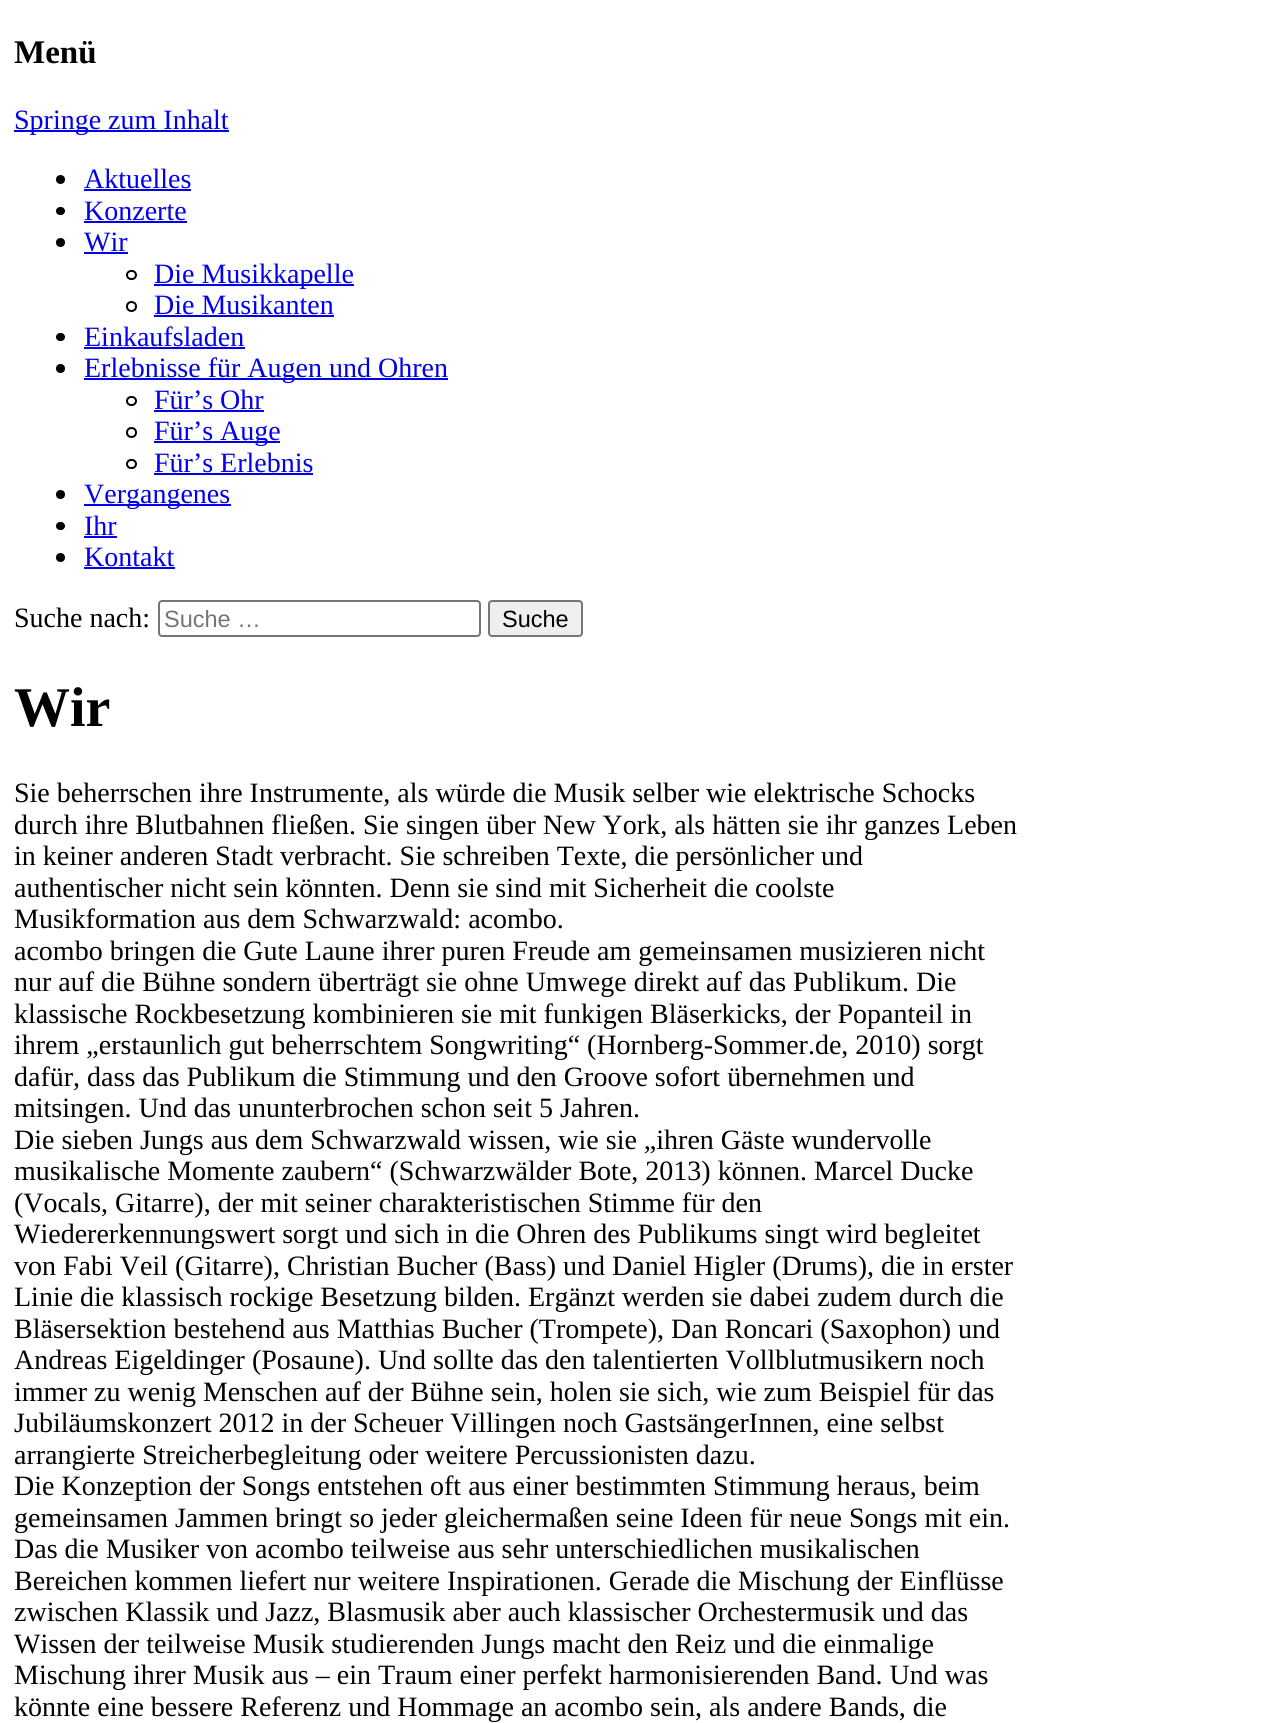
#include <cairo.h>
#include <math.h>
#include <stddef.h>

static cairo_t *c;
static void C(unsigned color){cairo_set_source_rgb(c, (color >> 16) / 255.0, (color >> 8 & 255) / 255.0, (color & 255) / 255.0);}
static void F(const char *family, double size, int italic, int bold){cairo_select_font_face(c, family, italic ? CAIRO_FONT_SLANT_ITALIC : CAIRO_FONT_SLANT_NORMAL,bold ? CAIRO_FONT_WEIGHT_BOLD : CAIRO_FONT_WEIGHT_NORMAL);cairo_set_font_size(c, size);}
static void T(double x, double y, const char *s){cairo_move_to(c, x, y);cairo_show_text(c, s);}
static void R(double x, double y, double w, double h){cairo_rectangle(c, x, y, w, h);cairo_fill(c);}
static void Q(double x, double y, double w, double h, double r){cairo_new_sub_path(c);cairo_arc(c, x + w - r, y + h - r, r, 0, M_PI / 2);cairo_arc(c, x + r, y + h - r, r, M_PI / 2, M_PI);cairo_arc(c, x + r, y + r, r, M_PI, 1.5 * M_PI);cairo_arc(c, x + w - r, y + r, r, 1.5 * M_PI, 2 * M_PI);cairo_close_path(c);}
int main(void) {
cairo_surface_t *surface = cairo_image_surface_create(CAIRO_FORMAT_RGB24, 1261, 1723);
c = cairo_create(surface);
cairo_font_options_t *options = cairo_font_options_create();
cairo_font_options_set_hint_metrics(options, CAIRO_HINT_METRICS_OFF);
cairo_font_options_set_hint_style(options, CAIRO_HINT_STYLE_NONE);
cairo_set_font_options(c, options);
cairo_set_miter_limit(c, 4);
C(0xffffff);
cairo_paint(c);
F("Liberation Serif",33,0,1);
C(0x000000);
T(14,63,"Menü");
C(0x0000ee);
R(14,130,215,2);
F("Liberation Serif",28,0,0);
T(14,129,"Springe zum Inhalt");
C(0x000000);
cairo_new_path(c);
cairo_arc(c,60.5,179.5,4.5,0,2 * M_PI);
cairo_fill(c);
C(0x0000ee);
T(84,188,"Aktuelles");
R(84,189,107,2);
C(0x000000);
Q(56,207,9,8,4);
cairo_fill(c);
C(0x0000ee);
T(84,220,"Konzerte");
R(84,221,103,2);
C(0x000000);
cairo_new_path(c);
cairo_arc(c,60.5,242.5,4.5,0,2 * M_PI);
cairo_fill(c);
C(0x0000ee);
T(84,251,"Wir");
R(84,252,44,2);
Q(127,271,9,8,4);
C(0x000000);
cairo_stroke(c);
C(0x0000ee);
R(154,284,200,2);
T(154,283,"Die Musikkapelle");
cairo_new_path(c);
cairo_arc(c,131.5,306.5,4.5,0,2 * M_PI);
C(0x000000);
cairo_stroke(c);
C(0x0000ee);
T(154,314,"Die Musikanten");
R(154,315,180,2);
C(0x000000);
Q(56,333,9,8,4);
cairo_fill(c);
C(0x0000ee);
T(84,346,"Einkaufsladen");
R(84,347,161,2);
C(0x000000);
cairo_new_path(c);
cairo_arc(c,60.5,368.5,4.5,0,2 * M_PI);
cairo_fill(c);
C(0x0000ee);
R(84,378,364,2);
T(84,377,"Erlebnisse für Augen und Ohren");
Q(127,397,9,8,4);
C(0x000000);
cairo_stroke(c);
C(0x0000ee);
T(154,409,"Für’s Ohr");
R(154,410,110,2);
cairo_new_path(c);
cairo_arc(c,131.5,432.5,4.5,0,2 * M_PI);
C(0x000000);
cairo_stroke(c);
C(0x0000ee);
R(154,441,126,2);
T(154,440,"Für’s Auge");
Q(127,460,9,8,4);
C(0x000000);
cairo_stroke(c);
C(0x0000ee);
T(154,472,"Für’s Erlebnis");
R(154,473,159,2);
C(0x000000);
cairo_new_path(c);
cairo_arc(c,60.5,494.5,4.5,0,2 * M_PI);
cairo_fill(c);
C(0x0000ee);
R(84,504,147,2);
T(84,503,"Vergangenes");
C(0x000000);
Q(56,522,9,8,4);
cairo_fill(c);
C(0x0000ee);
T(84,535,"Ihr");
R(84,536,33,2);
C(0x000000);
cairo_new_path(c);
cairo_arc(c,60.5,557.5,4.5,0,2 * M_PI);
cairo_fill(c);
C(0x0000ee);
T(84,566,"Kontakt");
R(84,567,91,2);
C(0x000000);
T(14,627,"Suche nach:");
Q(159,601,321,35,3);
C(0x767676);
cairo_stroke(c);
F("Liberation Sans",23.5,0,0);
C(0x757575);
T(164,627,"Suche …");
C(0xefefef);
Q(489,601,93,35,3);
cairo_fill_preserve(c);
C(0x767676);
cairo_stroke(c);
C(0x000000);
T(502,627,"Suche");
F("Liberation Serif",56,0,1);
T(14,726,"Wir");
F("Liberation Serif",28,0,0);
T(14,802,"Sie beherrschen ihre Instrumente, als würde die Musik selber wie elektrische Schocks");
T(14,834,"durch ihre Blutbahnen fließen. Sie singen über New York, als hätten sie ihr ganzes Leben");
T(14,865,"in keiner anderen Stadt verbracht. Sie schreiben Texte, die persönlicher und");
T(14,897,"authentischer nicht sein könnten. Denn sie sind mit Sicherheit die coolste");
T(14,928,"Musikformation aus dem Schwarzwald: acombo.");
T(14,960,"acombo bringen die Gute Laune ihrer puren Freude am gemeinsamen musizieren nicht");
T(14,991,"nur auf die Bühne sondern überträgt sie ohne Umwege direkt auf das Publikum. Die");
T(14,1023,"klassische Rockbesetzung kombinieren sie mit funkigen Bläserkicks, der Popanteil in");
T(14,1054,"ihrem „erstaunlich gut beherrschtem Songwriting“ (Hornberg-Sommer.de, 2010) sorgt");
T(14,1086,"dafür, dass das Publikum die Stimmung und den Groove sofort übernehmen und");
T(14,1117,"mitsingen. Und das ununterbrochen schon seit 5 Jahren.");
T(14,1149,"Die sieben Jungs aus dem Schwarzwald wissen, wie sie „ihren Gäste wundervolle");
T(14,1180,"musikalische Momente zaubern“ (Schwarzwälder Bote, 2013) können. Marcel Ducke");
T(14,1212,"(Vocals, Gitarre), der mit seiner charakteristischen Stimme für den");
T(14,1243,"Wiedererkennungswert sorgt und sich in die Ohren des Publikums singt wird begleitet");
T(14,1275,"von Fabi Veil (Gitarre), Christian Bucher (Bass) und Daniel Higler (Drums), die in erster");
T(14,1306,"Linie die klassisch rockige Besetzung bilden. Ergänzt werden sie dabei zudem durch die");
T(14,1338,"Bläsersektion bestehend aus Matthias Bucher (Trompete), Dan Roncari (Saxophon) und");
T(14,1369,"Andreas Eigeldinger (Posaune). Und sollte das den talentierten Vollblutmusikern noch");
T(14,1401,"immer zu wenig Menschen auf der Bühne sein, holen sie sich, wie zum Beispiel für das");
T(14,1432,"Jubiläumskonzert 2012 in der Scheuer Villingen noch GastsängerInnen, eine selbst");
T(14,1464,"arrangierte Streicherbegleitung oder weitere Percussionisten dazu.");
T(14,1495,"Die Konzeption der Songs entstehen oft aus einer bestimmten Stimmung heraus, beim");
T(14,1527,"gemeinsamen Jammen bringt so jeder gleichermaßen seine Ideen für neue Songs mit ein.");
T(14,1558,"Das die Musiker von acombo teilweise aus sehr unterschiedlichen musikalischen");
T(14,1590,"Bereichen kommen liefert nur weitere Inspirationen. Gerade die Mischung der Einflüsse");
T(14,1621,"zwischen Klassik und Jazz, Blasmusik aber auch klassischer Orchestermusik und das");
T(14,1653,"Wissen der teilweise Musik studierenden Jungs macht den Reiz und die einmalige");
T(14,1684,"Mischung ihrer Musik aus – ein Traum einer perfekt harmonisierenden Band. Und was");
T(14,1716,"könnte eine bessere Referenz und Hommage an acombo sein, als andere Bands, die");
cairo_surface_write_to_png(surface, "o.png");
cairo_font_options_destroy(options);
cairo_destroy(c);
cairo_surface_destroy(surface);
return 0;
}
